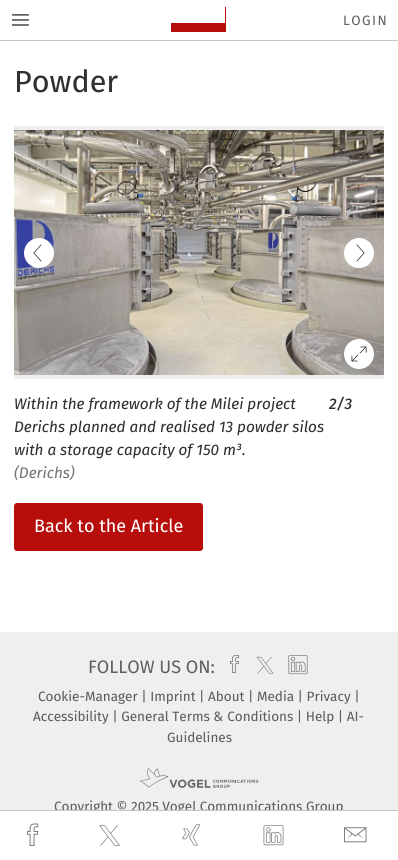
#include <cairo.h>
#include <math.h>
#include <stddef.h>

static cairo_t *c;
static void C(unsigned color){cairo_set_source_rgb(c, (color >> 16) / 255.0, (color >> 8 & 255) / 255.0, (color & 255) / 255.0);}
static void F(const char *family, double size, int italic, int bold){cairo_select_font_face(c, family, italic ? CAIRO_FONT_SLANT_ITALIC : CAIRO_FONT_SLANT_NORMAL,bold ? CAIRO_FONT_WEIGHT_BOLD : CAIRO_FONT_WEIGHT_NORMAL);cairo_set_font_size(c, size);}
static void T(double x, double y, const char *s){cairo_move_to(c, x, y);cairo_show_text(c, s);}
static void L(double x, double y, const char *s, double letter, double word){cairo_move_to(c, x, y);while (*s) {char ch[5] = {0};int n = 0;do ch[n++] = *s++; while ((*s & 0xC0) == 0x80);cairo_show_text(c, ch);cairo_rel_move_to(c, letter + word * (*ch == ' '), 0);}}
static void R(double x, double y, double w, double h){cairo_rectangle(c, x, y, w, h);cairo_fill(c);}
static void Q(double x, double y, double w, double h, double r){cairo_new_sub_path(c);cairo_arc(c, x + w - r, y + h - r, r, 0, M_PI / 2);cairo_arc(c, x + r, y + h - r, r, M_PI / 2, M_PI);cairo_arc(c, x + r, y + r, r, M_PI, 1.5 * M_PI);cairo_arc(c, x + w - r, y + r, r, 1.5 * M_PI, 2 * M_PI);cairo_close_path(c);}
static void I(const char *path, double x, double y, double w, double h){cairo_surface_t *image = cairo_image_surface_create_from_png(path);cairo_save(c);cairo_set_source_surface(c, image, x, y);cairo_rectangle(c, x, y, w, h);cairo_fill(c);cairo_restore(c);cairo_surface_destroy(image);}
int main(void) {
cairo_surface_t *surface = cairo_image_surface_create(CAIRO_FORMAT_RGB24, 398, 860);
c = cairo_create(surface);
cairo_font_options_t *options = cairo_font_options_create();
cairo_font_options_set_hint_metrics(options, CAIRO_HINT_METRICS_OFF);
cairo_font_options_set_hint_style(options, CAIRO_HINT_STYLE_NONE);
cairo_set_font_options(c, options);
cairo_set_miter_limit(c, 4);
C(0xffffff);
cairo_paint(c);
C(0xc6c6c6);
R(0,40,398,1);
I("1.png",12,14,17,12);
C(0xb60e0c);
R(225,7,1,16);
R(171,23,55,9);
F("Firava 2",13.5,0,0);
C(0x5e5e5e);
L(343,25,"LOGIN",1.5,0);
F("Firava",30.5,0,0);
C(0x303030);
T(14,92,"Powder");
C(0xefefef);
R(14,126,370,253);
I("2.png",14,130,370,245);
I("3.png",24,238,30,30);
I("4.png",344,238,30,30);
I("5.png",344,339,30,30);
F("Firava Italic",15.3,1,0);
C(0x303030);
T(14,409,"Within the framework of the Milei project");
T(14,432,"Derichs planned and realised 13 powder silos");
T(14,455,"with a storage capacity of 150 m³.");
C(0x767676);
T(14,478,"(Derichs)");
F("Firava Italic Medium",15.3,1,0);
C(0x303030);
T(329,409,"2/3");
C(0xb70e0c);
Q(14,503,189,48,3);
cairo_fill(c);
F("Firava",18,0,0);
C(0xffffff);
T(34,532,"Back to the Article");
C(0xefefef);
R(0,632,398,178);
F("Firava",13.5,0,0);
C(0x5e5e5e);
T(54,811,"Copyright © 2025 Vogel Communications Group");
C(0xffffff);
R(58,811,283,3);
C(0xc6c6c6);
R(0,810,398,1);
I("6.png",27,823,12,23);
I("7.png",99,825,21,21);
I("8.png",182,824,19,22);
I("9.png",263,825,21,21);
I("10.png",344,827,23,16);
F("Firava 2",18,0,0);
C(0x5e5e5e);
T(88,673,"FOLLOW US ON:");
I("11.png",230,655,9,18);
I("12.png",256,656,18,18);
I("13.png",288,655,20,20);
F("Firava",13.5,0,0);
T(38,701,"Cookie-Manager | Imprint | About | Media | Privacy |");
T(33,721,"Accessibility | General Terms & Conditions | Help | AI-");
T(167,742,"Guidelines");
I("14.png",139,768,120,20);
cairo_surface_write_to_png(surface, "o.png");
cairo_font_options_destroy(options);
cairo_destroy(c);
cairo_surface_destroy(surface);
return 0;
}
